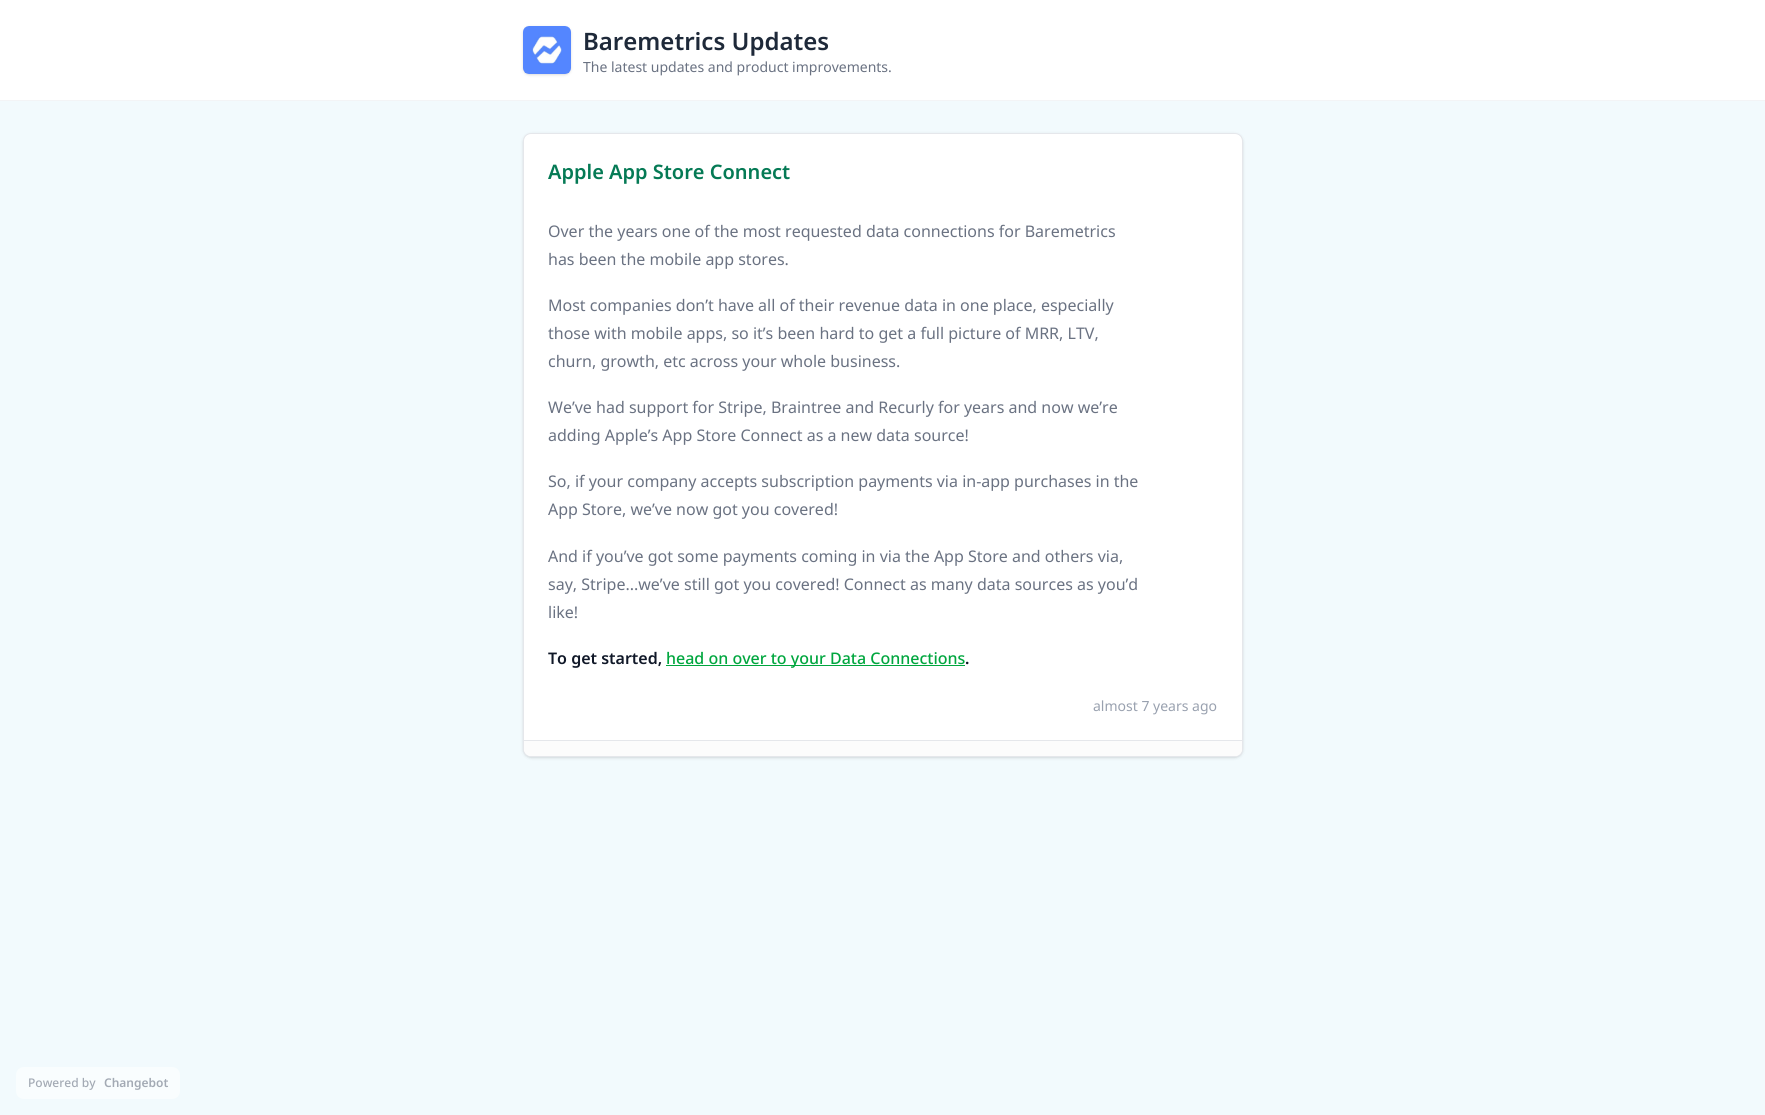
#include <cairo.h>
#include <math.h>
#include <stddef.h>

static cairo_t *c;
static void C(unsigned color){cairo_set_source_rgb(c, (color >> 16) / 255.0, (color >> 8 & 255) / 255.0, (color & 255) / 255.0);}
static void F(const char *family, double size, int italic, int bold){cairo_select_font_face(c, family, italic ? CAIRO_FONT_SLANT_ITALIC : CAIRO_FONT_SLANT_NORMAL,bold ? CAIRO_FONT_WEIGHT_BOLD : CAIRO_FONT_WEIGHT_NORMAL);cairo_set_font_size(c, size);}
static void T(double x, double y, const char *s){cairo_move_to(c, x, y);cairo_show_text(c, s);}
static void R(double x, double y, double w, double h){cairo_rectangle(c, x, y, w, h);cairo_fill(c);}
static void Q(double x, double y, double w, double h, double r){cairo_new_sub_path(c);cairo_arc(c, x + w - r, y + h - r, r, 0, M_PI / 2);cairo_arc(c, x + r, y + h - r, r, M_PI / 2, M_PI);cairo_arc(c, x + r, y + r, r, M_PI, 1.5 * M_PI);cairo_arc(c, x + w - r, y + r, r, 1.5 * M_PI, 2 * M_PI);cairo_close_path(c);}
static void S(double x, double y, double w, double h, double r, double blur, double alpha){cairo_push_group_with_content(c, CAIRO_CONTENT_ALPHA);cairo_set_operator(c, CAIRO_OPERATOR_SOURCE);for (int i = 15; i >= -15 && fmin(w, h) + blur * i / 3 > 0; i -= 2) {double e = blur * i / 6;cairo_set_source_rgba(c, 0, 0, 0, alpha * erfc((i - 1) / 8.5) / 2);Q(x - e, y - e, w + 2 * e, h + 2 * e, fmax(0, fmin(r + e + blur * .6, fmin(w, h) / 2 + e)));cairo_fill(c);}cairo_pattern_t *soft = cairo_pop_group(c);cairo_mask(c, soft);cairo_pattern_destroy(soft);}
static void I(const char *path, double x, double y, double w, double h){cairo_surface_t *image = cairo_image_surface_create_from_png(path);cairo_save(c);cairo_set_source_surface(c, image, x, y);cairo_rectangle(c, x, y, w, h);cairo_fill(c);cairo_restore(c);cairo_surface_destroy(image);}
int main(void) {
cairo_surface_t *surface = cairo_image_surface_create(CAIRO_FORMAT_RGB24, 1765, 1115);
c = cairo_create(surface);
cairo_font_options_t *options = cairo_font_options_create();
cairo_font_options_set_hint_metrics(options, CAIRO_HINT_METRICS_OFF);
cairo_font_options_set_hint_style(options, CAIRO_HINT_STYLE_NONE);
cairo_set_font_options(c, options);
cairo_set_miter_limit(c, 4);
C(0xf2fafd);
cairo_paint(c);
C(0xffffff);
R(0,0,1765,100);
C(0xf3f4f6);
R(0,100,1765,1);
C(0x000000);
S(524,28,46,46,5,1,.1);
S(523,27,48,48,6,1.5,.1);
I("1.png",523,26,48,48);
F("Noto Sans SemiBold",24,0,0);
C(0x1e2939);
T(583,50,"Baremetrics Updates");
F("Noto Sans",14,0,0);
C(0x6a7282);
T(583,72,"The latest updates and product improvements.");
C(0x000000);
S(524,135,718,622,7,1,.1);
S(523,134,720,624,8,1.5,.1);
C(0xffffff);
Q(523.5,133.5,719,623,7.5);
cairo_fill_preserve(c);
C(0xe5e7eb);
cairo_set_line_width(c,1);
cairo_stroke(c);
F("Noto Sans SemiBold",20,0,0);
C(0x057a55);
T(548,179,"Apple App Store Connect");
F("Noto Sans",16,0,0);
C(0x6a7282);
T(548,237,"Over the years one of the most requested data connections for Baremetrics");
T(548,265,"has been the mobile app stores.");
T(548,311,"Most companies don’t have all of their revenue data in one place, especially");
T(548,339,"those with mobile apps, so it’s been hard to get a full picture of MRR, LTV,");
T(548,367,"churn, growth, etc across your whole business.");
T(548,413,"We’ve had support for Stripe, Braintree and Recurly for years and now we’re");
T(548,441,"adding Apple’s App Store Connect as a new data source!");
T(548,487,"So, if your company accepts subscription payments via in-app purchases in the");
T(548,515,"App Store, we’ve now got you covered!");
T(548,562,"And if you’ve got some payments coming in via the App Store and others via,");
T(548,590,"say, Stripe...we’ve still got you covered! Connect as many data sources as you’d");
T(548,618,"like!");
F("Noto Sans SemiBold",16,0,0);
C(0x101828);
T(548,664,"To get started,");
C(0x00a63e);
R(666,665,299,1);
F("Noto Sans Medium",16,0,0);
T(666,664,"head on over to your Data Connections");
F("Noto Sans SemiBold",16,0,0);
C(0x101828);
T(965,664,".");
F("Noto Sans",14,0,0);
C(0x99a1af);
T(1093,711,"almost 7 years ago");
C(0xfcfcfc);
cairo_new_path(c);
cairo_move_to(c,524,741);
cairo_line_to(c,1242,741);
cairo_line_to(c,1242,749);
cairo_curve_to(c,1242,753,1239,756,1235,756);
cairo_line_to(c,531,756);
cairo_curve_to(c,527,756,524,753,524,749);
cairo_close_path(c);
cairo_fill(c);
C(0xe5e7eb);
R(524,740,718,1);
C(0xf9fdfe);
Q(16,1067,164,32,8);
cairo_fill(c);
F("Noto Sans Medium",12,0,0);
C(0xa3aab4);
T(28,1087,"Powered by");
F("Noto Sans SemiBold",12,0,0);
T(104,1087,"Changebot");
cairo_surface_write_to_png(surface, "o.png");
cairo_font_options_destroy(options);
cairo_destroy(c);
cairo_surface_destroy(surface);
return 0;
}
